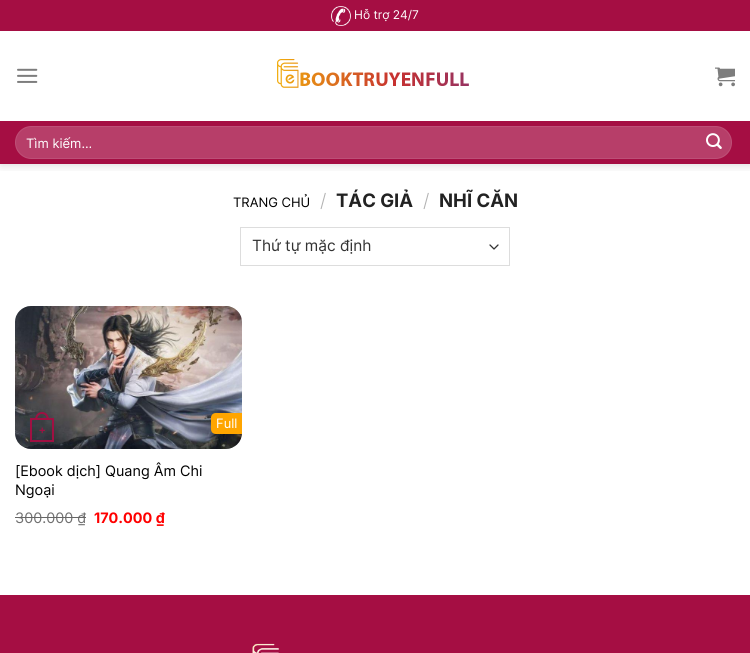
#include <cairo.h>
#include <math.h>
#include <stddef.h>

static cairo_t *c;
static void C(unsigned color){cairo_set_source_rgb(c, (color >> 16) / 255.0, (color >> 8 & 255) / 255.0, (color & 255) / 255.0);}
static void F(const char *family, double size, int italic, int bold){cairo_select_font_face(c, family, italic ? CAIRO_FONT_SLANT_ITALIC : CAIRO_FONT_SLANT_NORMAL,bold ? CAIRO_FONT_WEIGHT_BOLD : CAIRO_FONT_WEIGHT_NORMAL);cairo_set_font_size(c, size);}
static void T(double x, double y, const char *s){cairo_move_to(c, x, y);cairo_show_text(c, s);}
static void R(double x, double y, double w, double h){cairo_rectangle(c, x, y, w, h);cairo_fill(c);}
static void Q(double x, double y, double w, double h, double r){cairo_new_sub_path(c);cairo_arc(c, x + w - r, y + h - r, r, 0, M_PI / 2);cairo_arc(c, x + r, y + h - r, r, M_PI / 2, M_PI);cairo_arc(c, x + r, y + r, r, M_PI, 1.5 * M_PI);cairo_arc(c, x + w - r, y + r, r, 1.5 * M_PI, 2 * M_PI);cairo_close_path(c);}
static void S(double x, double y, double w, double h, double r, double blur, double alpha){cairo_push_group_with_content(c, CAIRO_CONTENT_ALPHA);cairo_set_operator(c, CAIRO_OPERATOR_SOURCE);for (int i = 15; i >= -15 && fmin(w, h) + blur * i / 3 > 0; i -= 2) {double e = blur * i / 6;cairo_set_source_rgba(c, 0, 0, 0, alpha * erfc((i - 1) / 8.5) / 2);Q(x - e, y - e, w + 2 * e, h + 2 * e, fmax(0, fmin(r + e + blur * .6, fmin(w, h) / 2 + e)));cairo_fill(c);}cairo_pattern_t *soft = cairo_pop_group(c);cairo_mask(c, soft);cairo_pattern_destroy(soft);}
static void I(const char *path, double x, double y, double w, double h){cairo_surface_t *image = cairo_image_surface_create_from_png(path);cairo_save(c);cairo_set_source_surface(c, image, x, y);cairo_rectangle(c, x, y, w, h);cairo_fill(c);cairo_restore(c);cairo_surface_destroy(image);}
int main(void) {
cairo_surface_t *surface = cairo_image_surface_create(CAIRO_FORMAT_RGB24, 750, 653);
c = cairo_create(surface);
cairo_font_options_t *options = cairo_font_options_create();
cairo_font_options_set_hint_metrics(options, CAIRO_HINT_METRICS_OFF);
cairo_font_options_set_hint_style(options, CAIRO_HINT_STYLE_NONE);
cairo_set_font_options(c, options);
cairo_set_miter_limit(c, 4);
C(0xffffff);
cairo_paint(c);
cairo_save(c);
cairo_rectangle(c,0,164,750,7);
cairo_clip(c);
C(0x000000);
S(1,1,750,164,0,5,.15);
cairo_restore(c);
C(0xa50e43);
R(0,0,750,31);
I("1.png",331,6,20,20);
F("Inter",12,0,0);
C(0xffffff);
T(354,19,"Hỗ trợ 24/7");
I("2.png",17,68,21,15);
I("3.png",277,59,192,29);
I("4.png",715,67,20,20);
C(0xa50e43);
R(0,121,750,43);
C(0xb73e69);
Q(15,126,717,33,16.5);
cairo_fill(c);
Q(15.5,126.5,716,32,16);
cairo_set_source_rgba(c,1,1,1,0.09);
cairo_set_line_width(c,1);
cairo_stroke(c);
F("Inter",13,0,0);
C(0xffffff);
T(26,148,"Tìm kiếm…");
I("5.png",706,133,16,16);
C(0x000000);
T(233,207,"TRANG CHỦ");
F("Inter Light",18.5,0,0);
C(0xb2b2b2);
T(320,207,"/");
F("Inter",18.5,0,1);
C(0x222222);
T(336,207,"TÁC GIẢ");
F("Inter Light",18.5,0,0);
C(0xb2b2b2);
T(423,207,"/");
F("Inter",18.5,0,1);
C(0x222222);
T(439,207,"NHĨ CĂN");
cairo_new_path(c);
cairo_move_to(c,490,245);
cairo_line_to(c,494,249);
cairo_line_to(c,498,245);
C(0x333333);
cairo_set_line_width(c,1.3);
cairo_set_line_cap(c,CAIRO_LINE_CAP_ROUND);
cairo_set_line_join(c,CAIRO_LINE_JOIN_ROUND);
cairo_stroke(c);
cairo_rectangle(c,240.5,227.5,269,38);
C(0xdddddd);
cairo_set_line_width(c,1);
cairo_set_line_cap(c,CAIRO_LINE_CAP_BUTT);
cairo_set_line_join(c,CAIRO_LINE_JOIN_MITER);
cairo_stroke(c);
F("Inter",15.5,0,0);
C(0x333333);
T(252,251,"Thứ tự mặc định");
I("6.png",15,306,227,143);
C(0xffa500);
cairo_new_path(c);
cairo_move_to(c,216,413);
cairo_line_to(c,242,413);
cairo_line_to(c,242,434);
cairo_line_to(c,216,434);
cairo_curve_to(c,213,434,211,432,211,429);
cairo_line_to(c,211,418);
cairo_curve_to(c,211,415,213,413,216,413);
cairo_close_path(c);
cairo_fill(c);
F("Inter",13,0,0);
C(0xffffff);
T(216,428,"Full");
cairo_rectangle(c,31,419,22,22);
cairo_set_source_rgba(c,0.647,0.055,0.263,0.95);
cairo_set_line_width(c,2);
cairo_stroke(c);
cairo_set_fill_rule(c,CAIRO_FILL_RULE_EVEN_ODD);
cairo_new_path(c);
cairo_move_to(c,42,412);
cairo_curve_to(c,46.5,412,49,416,49,420);
cairo_line_to(c,35,420);
cairo_curve_to(c,35,416,37.5,412,42,412);
cairo_close_path(c);
cairo_move_to(c,42,414);
cairo_curve_to(c,45.5,414,47,417,47,420);
cairo_line_to(c,37,420);
cairo_curve_to(c,37,417,38.5,414,42,414);
cairo_close_path(c);
cairo_fill(c);
F("Liberation Sans",11,0,1);
C(0xa01043);
T(39,434,"+");
F("Inter",14.4,0,0);
C(0x000000);
T(15,476,"[Ebook dịch] Quang Âm Chi");
T(15,495,"Ngoại");
C(0x707070);
T(15,523,"300.000 ₫");
C(0x666666);
R(15,517,71,1);
F("Inter",14.4,0,1);
C(0xff0000);
T(94,523,"170.000 ₫");
C(0xa50e43);
R(0,595,750,58);
I("7.png",252,643,27,10);
cairo_surface_write_to_png(surface, "o.png");
cairo_font_options_destroy(options);
cairo_destroy(c);
cairo_surface_destroy(surface);
return 0;
}
